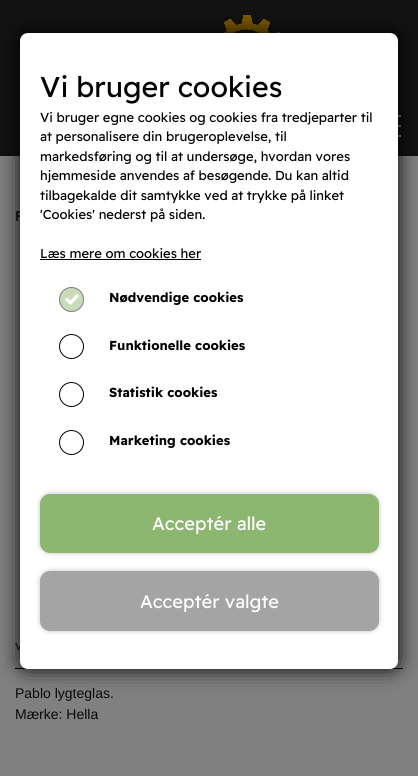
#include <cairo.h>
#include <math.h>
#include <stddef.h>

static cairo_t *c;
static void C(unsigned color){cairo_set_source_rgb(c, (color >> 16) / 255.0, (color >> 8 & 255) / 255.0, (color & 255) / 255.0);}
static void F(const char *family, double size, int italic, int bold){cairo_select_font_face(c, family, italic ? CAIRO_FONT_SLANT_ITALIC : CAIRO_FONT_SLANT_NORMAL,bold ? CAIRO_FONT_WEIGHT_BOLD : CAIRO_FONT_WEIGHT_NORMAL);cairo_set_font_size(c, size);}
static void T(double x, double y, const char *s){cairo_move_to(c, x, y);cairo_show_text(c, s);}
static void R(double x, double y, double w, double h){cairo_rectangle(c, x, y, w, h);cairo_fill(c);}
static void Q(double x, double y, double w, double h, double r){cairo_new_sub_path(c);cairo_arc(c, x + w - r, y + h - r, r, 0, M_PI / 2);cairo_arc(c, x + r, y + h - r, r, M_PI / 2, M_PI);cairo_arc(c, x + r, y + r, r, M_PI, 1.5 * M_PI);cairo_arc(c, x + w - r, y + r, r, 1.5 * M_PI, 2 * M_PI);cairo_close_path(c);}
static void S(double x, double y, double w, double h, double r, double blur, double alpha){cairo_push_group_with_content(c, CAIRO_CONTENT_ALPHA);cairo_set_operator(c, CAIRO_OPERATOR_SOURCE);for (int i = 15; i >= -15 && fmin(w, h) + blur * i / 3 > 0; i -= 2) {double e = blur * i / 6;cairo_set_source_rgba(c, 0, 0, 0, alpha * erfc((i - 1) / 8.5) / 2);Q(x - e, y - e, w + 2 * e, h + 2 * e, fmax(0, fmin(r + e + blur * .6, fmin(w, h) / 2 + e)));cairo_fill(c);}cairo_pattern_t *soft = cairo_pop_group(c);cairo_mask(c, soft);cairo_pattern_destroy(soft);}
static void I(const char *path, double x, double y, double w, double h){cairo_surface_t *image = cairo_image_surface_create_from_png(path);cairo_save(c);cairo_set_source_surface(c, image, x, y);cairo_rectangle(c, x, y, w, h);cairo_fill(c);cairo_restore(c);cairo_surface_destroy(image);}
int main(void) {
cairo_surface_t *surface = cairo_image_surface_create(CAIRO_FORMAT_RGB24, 418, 776);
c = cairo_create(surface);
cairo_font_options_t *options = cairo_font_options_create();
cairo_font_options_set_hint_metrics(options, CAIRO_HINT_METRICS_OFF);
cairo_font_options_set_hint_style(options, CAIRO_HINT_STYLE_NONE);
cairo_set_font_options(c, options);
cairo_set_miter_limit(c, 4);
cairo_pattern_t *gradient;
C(0x808080);
cairo_paint(c);
C(0x121212);
R(0,0,418,151);
I("1.png",224,15,56,18);
C(0x808080);
R(398,115,3,2);
R(398,125,3,2);
R(398,135,3,2);
gradient = cairo_pattern_create_linear(209,156,209,151);
cairo_pattern_add_color_stop_rgba(gradient,0,0.059,0.059,0.059,1);
cairo_pattern_add_color_stop_rgba(gradient,1,0.071,0.071,0.071,1);
cairo_set_source(c,gradient);
cairo_pattern_destroy(gradient);
R(0,151,418,5);
C(0x000000);
R(15,668,388,1);
C(0x000000);
S(20,33,378,636,8,10,1);
F("Readex Pro",14,0,0);
C(0x000000);
T(15,221,"F");
F("Readex Pro",10,0,0);
C(0x090909);
T(15,650,"V");
C(0xffffff);
Q(20,33,378,636,8);
cairo_fill(c);
F("Readex Pro",28.5,0,0);
C(0x000000);
T(40,97,"Vi bruger cookies");
F("Readex Pro",13,0,0);
T(40,122,"Vi bruger egne cookies og cookies fra tredjeparter til");
T(40,141,"at personalisere din brugeroplevelse, til");
T(40,161,"markedsføring og til at undersøge, hvordan vores");
T(40,180,"hjemmeside anvendes af besøgende. Du kan altid");
T(40,200,"tilbagekalde dit samtykke ved at trykke på linket");
T(40,219,"'Cookies' nederst på siden.");
T(40,258,"Læs mere om cookies her");
R(40,259,161,1);
C(0xc8dcba);
cairo_new_path(c);
cairo_arc(c,71.5,299.5,12.5,0,2 * M_PI);
cairo_fill(c);
cairo_new_path(c);
cairo_move_to(c,67,299.5);
cairo_line_to(c,70.5,303);
cairo_line_to(c,77,296);
C(0xffffff);
cairo_set_line_width(c,3.4);
cairo_set_line_cap(c,CAIRO_LINE_CAP_ROUND);
cairo_set_line_join(c,CAIRO_LINE_JOIN_ROUND);
cairo_stroke(c);
cairo_arc(c,71.5,299.5,12,0,2 * M_PI);
C(0x808080);
cairo_set_line_width(c,1);
cairo_set_line_cap(c,CAIRO_LINE_CAP_BUTT);
cairo_set_line_join(c,CAIRO_LINE_JOIN_MITER);
cairo_stroke(c);
F("Readex Pro",13,0,1);
C(0x000000);
T(109,302,"Nødvendige cookies");
cairo_new_path(c);
cairo_arc(c,71.5,346.5,12,0,2 * M_PI);
cairo_stroke(c);
T(109,350,"Funktionelle cookies");
cairo_new_path(c);
cairo_arc(c,71.5,394.5,12,0,2 * M_PI);
cairo_stroke(c);
T(109,397,"Statistik cookies");
cairo_new_path(c);
cairo_arc(c,71.5,442.5,12,0,2 * M_PI);
cairo_stroke(c);
T(109,445,"Marketing cookies");
C(0x000000);
S(40,494,339,59,10,2.5,.25);
C(0x8db671);
Q(40,494,339,59,10);
cairo_fill(c);
F("Readex Pro",18.25,0,0);
C(0xffffff);
T(152,530,"Acceptér alle");
C(0x000000);
S(40,571,339,60,10,2.5,.25);
C(0xa4a4a4);
Q(40,571,339,60,10);
cairo_fill(c);
C(0xffffff);
T(140,608,"Acceptér valgte");
F("Liberation Sans",14,0,0);
C(0x090909);
T(15,698,"Pablo lygteglas.");
T(15,719,"Mærke: Hella");
cairo_surface_write_to_png(surface, "o.png");
cairo_font_options_destroy(options);
cairo_destroy(c);
cairo_surface_destroy(surface);
return 0;
}
